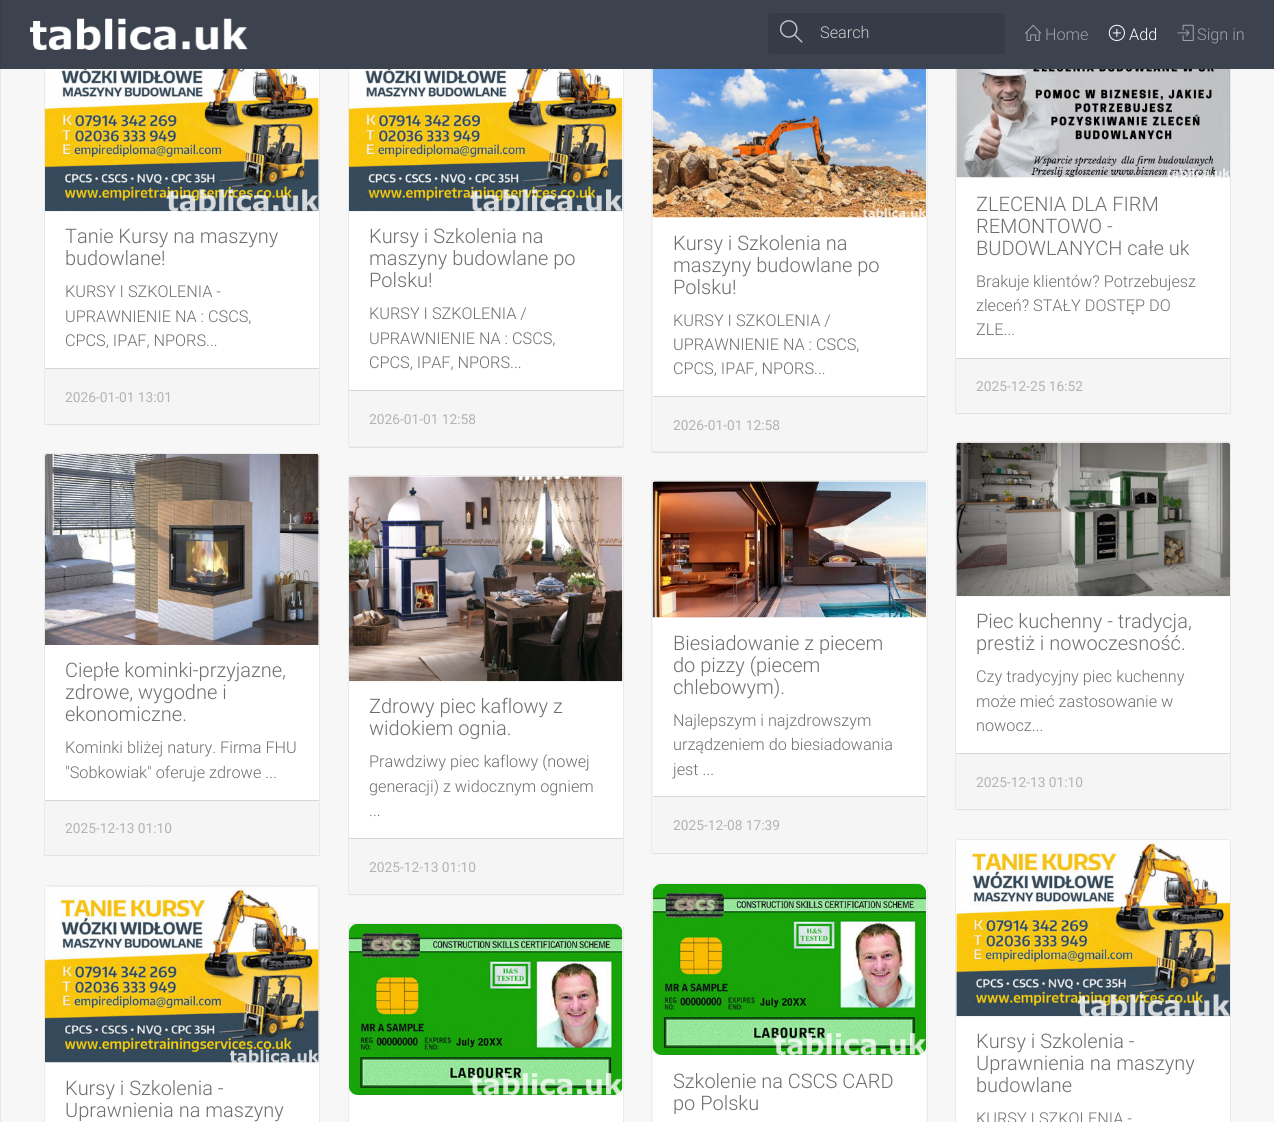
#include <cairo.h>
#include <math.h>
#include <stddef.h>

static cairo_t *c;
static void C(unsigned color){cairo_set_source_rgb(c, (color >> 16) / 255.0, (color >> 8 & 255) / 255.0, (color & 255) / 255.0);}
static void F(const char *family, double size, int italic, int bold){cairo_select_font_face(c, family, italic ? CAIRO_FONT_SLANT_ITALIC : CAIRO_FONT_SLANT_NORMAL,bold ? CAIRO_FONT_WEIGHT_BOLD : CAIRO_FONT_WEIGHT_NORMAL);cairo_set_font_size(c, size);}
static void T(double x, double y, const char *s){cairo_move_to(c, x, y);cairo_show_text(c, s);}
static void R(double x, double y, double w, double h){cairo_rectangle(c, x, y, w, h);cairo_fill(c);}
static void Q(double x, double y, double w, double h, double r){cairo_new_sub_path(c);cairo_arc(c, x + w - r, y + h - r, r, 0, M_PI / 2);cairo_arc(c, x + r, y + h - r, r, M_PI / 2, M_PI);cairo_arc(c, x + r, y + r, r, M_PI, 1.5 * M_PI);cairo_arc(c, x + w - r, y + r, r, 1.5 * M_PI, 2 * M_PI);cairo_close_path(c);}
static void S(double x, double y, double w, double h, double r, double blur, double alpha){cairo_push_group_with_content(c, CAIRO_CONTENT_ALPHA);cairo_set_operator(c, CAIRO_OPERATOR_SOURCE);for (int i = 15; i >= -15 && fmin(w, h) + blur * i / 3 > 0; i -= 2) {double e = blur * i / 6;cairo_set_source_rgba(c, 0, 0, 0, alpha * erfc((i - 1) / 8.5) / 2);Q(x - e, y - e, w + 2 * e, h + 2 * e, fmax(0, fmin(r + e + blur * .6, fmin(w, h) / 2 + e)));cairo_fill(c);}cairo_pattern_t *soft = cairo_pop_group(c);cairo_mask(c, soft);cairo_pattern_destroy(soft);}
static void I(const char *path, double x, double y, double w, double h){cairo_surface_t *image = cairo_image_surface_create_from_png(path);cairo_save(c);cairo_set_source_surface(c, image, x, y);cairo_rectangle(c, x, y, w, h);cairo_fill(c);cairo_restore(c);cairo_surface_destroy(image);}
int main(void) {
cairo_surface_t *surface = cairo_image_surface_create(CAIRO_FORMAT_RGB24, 1274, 1122);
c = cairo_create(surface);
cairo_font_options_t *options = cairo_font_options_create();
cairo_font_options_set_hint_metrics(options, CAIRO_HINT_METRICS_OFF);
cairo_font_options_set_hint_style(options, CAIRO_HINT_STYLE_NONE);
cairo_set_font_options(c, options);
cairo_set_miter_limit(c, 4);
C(0xf7f7f7);
cairo_paint(c);
C(0x000000);
S(45,36,274,389,2.5,.5,.05);
cairo_rectangle(c,44.5,34.5,275,390);
cairo_set_source_rgba(c,0,0,0,0.05);
cairo_set_line_width(c,1);
cairo_stroke(c);
C(0xffffff);
Q(45,35,274,389,2.5);
cairo_fill(c);
C(0x000000);
S(349,36,274,412,2.5,.5,.05);
cairo_rectangle(c,348.5,34.5,275,413);
cairo_set_source_rgba(c,0,0,0,0.05);
cairo_stroke(c);
C(0xffffff);
Q(349,35,274,411,2.5);
cairo_fill(c);
C(0x000000);
S(653,36,273,417,2.5,.5,.05);
cairo_rectangle(c,651.5,34.5,276,418);
cairo_set_source_rgba(c,0,0,0,0.05);
cairo_stroke(c);
C(0xffffff);
Q(653,35,273,416,2.5);
cairo_fill(c);
C(0x000000);
S(956,36,274,378,2.5,.5,.05);
cairo_rectangle(c,955.5,34.5,275,379);
cairo_set_source_rgba(c,0,0,0,0.05);
cairo_stroke(c);
C(0xffffff);
Q(956,35,274,378,2.5);
cairo_fill(c);
C(0x3d424f);
R(0,0,1274,69);
cairo_rectangle(c,-.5,-.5,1,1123);
cairo_set_source_rgba(c,0,0,0,0.07);
cairo_stroke(c);
I("1.png",30,18,218,32);
C(0x373b47);
Q(768,13,237,41,2.5);
cairo_fill(c);
I("2.png",779,20,24,23);
F("Roboto Light",16.25,0,0);
C(0xcccccc);
T(820,38,"Search");
I("3.png",1025,24,17,17);
C(0x9ea1a7);
T(1045,40,"Home");
I("4.png",1108,24,17,17);
C(0xffffff);
T(1129,40,"Add");
I("5.png",1177,24,17,17);
C(0x9ea1a7);
T(1197,40,"Sign in");
I("6.png",45,69,274,143);
F("Roboto Light",20,0,0);
C(0x6e6e6e);
T(65,243,"Tanie Kursy na maszyny");
T(65,265,"budowlane!");
F("Roboto Light",16.25,0,0);
T(65,297,"KURSY I SZKOLENIA -");
T(65,322,"UPRAWNIENIE NA : CSCS,");
T(65,346,"CPCS, IPAF, NPORS...");
C(0xf5f5f5);
cairo_new_path(c);
cairo_move_to(c,45,368);
cairo_line_to(c,319,368);
cairo_line_to(c,319,421.5);
cairo_curve_to(c,319,423,318,424,316.5,424);
cairo_line_to(c,47.5,424);
cairo_curve_to(c,46,424,45,423,45,421.5);
cairo_close_path(c);
cairo_fill(c);
C(0xd6d6d6);
R(45,368,274,1);
F("Roboto",13.75,0,0);
C(0xb3b3b3);
T(65,402,"2026-01-01 13:01");
I("7.png",349,69,274,143);
F("Roboto Light",20,0,0);
C(0x6e6e6e);
T(369,243,"Kursy i Szkolenia na");
T(369,265,"maszyny budowlane po");
T(369,287,"Polsku!");
F("Roboto Light",16.25,0,0);
T(369,319,"KURSY I SZKOLENIA /");
T(369,344,"UPRAWNIENIE NA : CSCS,");
T(369,368,"CPCS, IPAF, NPORS...");
C(0xf5f5f5);
cairo_new_path(c);
cairo_move_to(c,349,390);
cairo_line_to(c,623,390);
cairo_line_to(c,623,443.5);
cairo_curve_to(c,623,445,622,446,620.5,446);
cairo_line_to(c,351.5,446);
cairo_curve_to(c,350,446,349,445,349,443.5);
cairo_close_path(c);
cairo_fill(c);
C(0xd6d6d6);
R(349,390,274,1);
F("Roboto",13.75,0,0);
C(0xb3b3b3);
T(369,424,"2026-01-01 12:58");
I("8.png",652,69,274,149);
F("Roboto Light",20,0,0);
C(0x6e6e6e);
T(673,250,"Kursy i Szkolenia na");
T(673,272,"maszyny budowlane po");
T(673,294,"Polsku!");
F("Roboto Light",16.25,0,0);
T(673,326,"KURSY I SZKOLENIA /");
T(673,350,"UPRAWNIENIE NA : CSCS,");
T(673,374,"CPCS, IPAF, NPORS...");
C(0xf5f5f5);
cairo_new_path(c);
cairo_move_to(c,653,396);
cairo_line_to(c,926,396);
cairo_line_to(c,926,448.5);
cairo_curve_to(c,926,450,925,451,923.5,451);
cairo_line_to(c,655.5,451);
cairo_curve_to(c,654,451,653,450,653,448.5);
cairo_close_path(c);
cairo_fill(c);
C(0xd6d6d6);
R(653,396,273,1);
F("Roboto",13.75,0,0);
C(0xb3b3b3);
T(673,430,"2026-01-01 12:58");
I("9.png",956,69,274,109);
F("Roboto Light",20,0,0);
C(0x6e6e6e);
T(976,211,"ZLECENIA DLA FIRM");
T(976,233,"REMONTOWO -");
T(976,255,"BUDOWLANYCH całe uk");
F("Roboto Light",16.25,0,0);
T(976,287,"Brakuje klientów? Potrzebujesz");
T(976,311,"zleceń? STAŁY DOSTĘP DO");
T(976,335,"ZLE...");
C(0xf5f5f5);
cairo_new_path(c);
cairo_move_to(c,956,358);
cairo_line_to(c,1230,358);
cairo_line_to(c,1230,410.5);
cairo_curve_to(c,1230,412,1229,413,1227.5,413);
cairo_line_to(c,958.5,413);
cairo_curve_to(c,957,413,956,412,956,410.5);
cairo_close_path(c);
cairo_fill(c);
C(0xd6d6d6);
R(956,358,274,1);
F("Roboto",13.75,0,0);
C(0xb3b3b3);
T(976,391,"2025-12-25 16:52");
C(0x000000);
S(45,455,274,401,2.5,.5,.05);
cairo_rectangle(c,44.5,453.5,275,402);
cairo_set_source_rgba(c,0,0,0,0.05);
cairo_stroke(c);
C(0xffffff);
Q(45,454,274,401,2.5);
cairo_fill(c);
I("10.png",45,454,274,191);
F("Roboto Light",20,0,0);
C(0x6e6e6e);
T(65,677,"Ciepłe kominki-przyjazne,");
T(65,699,"zdrowe, wygodne i");
T(65,721,"ekonomiczne.");
F("Roboto Light",16.25,0,0);
T(65,753,"Kominki bliżej natury. Firma FHU");
T(65,778,"\"Sobkowiak\" oferuje zdrowe ...");
C(0xf5f5f5);
cairo_new_path(c);
cairo_move_to(c,45,800);
cairo_line_to(c,319,800);
cairo_line_to(c,319,852.5);
cairo_curve_to(c,319,854,318,855,316.5,855);
cairo_line_to(c,47.5,855);
cairo_curve_to(c,46,855,45,854,45,852.5);
cairo_close_path(c);
cairo_fill(c);
C(0xd6d6d6);
R(45,800,274,1);
F("Roboto",13.75,0,0);
C(0xb3b3b3);
T(65,833,"2025-12-13 01:10");
C(0x000000);
S(349,478,274,417,2.5,.5,.05);
cairo_rectangle(c,348.5,475.5,275,419);
cairo_set_source_rgba(c,0,0,0,0.05);
cairo_stroke(c);
C(0xffffff);
Q(349,476,274,418,2.5);
cairo_fill(c);
I("11.png",349,476,274,206);
F("Roboto Light",20,0,0);
C(0x6e6e6e);
T(369,713,"Zdrowy piec kaflowy z");
T(369,735,"widokiem ognia.");
F("Roboto Light",16.25,0,0);
T(369,767,"Prawdziwy piec kaflowy (nowej");
T(369,792,"generacji) z widocznym ogniem");
T(369,816,"...");
C(0xf5f5f5);
cairo_new_path(c);
cairo_move_to(c,349,838);
cairo_line_to(c,623,838);
cairo_line_to(c,623,891.5);
cairo_curve_to(c,623,893,622,894,620.5,894);
cairo_line_to(c,351.5,894);
cairo_curve_to(c,350,894,349,893,349,891.5);
cairo_close_path(c);
cairo_fill(c);
C(0xd6d6d6);
R(349,838,274,1);
F("Roboto",13.75,0,0);
C(0xb3b3b3);
T(369,872,"2025-12-13 01:10");
C(0x000000);
S(653,483,273,371,2.5,.5,.05);
cairo_rectangle(c,651.5,480.5,276,373);
cairo_set_source_rgba(c,0,0,0,0.05);
cairo_stroke(c);
C(0xffffff);
Q(653,481,273,372,2.5);
cairo_fill(c);
I("12.png",652,481,274,137);
F("Roboto Light",20,0,0);
C(0x6e6e6e);
T(673,650,"Biesiadowanie z piecem");
T(673,672,"do pizzy (piecem");
T(673,694,"chlebowym).");
F("Roboto Light",16.25,0,0);
T(673,726,"Najlepszym i najzdrowszym");
T(673,750,"urządzeniem do biesiadowania");
T(673,775,"jest ...");
C(0xf5f5f5);
cairo_new_path(c);
cairo_move_to(c,653,796);
cairo_line_to(c,926,796);
cairo_line_to(c,926,850.5);
cairo_curve_to(c,926,852,925,853,923.5,853);
cairo_line_to(c,655.5,853);
cairo_curve_to(c,654,853,653,852,653,850.5);
cairo_close_path(c);
cairo_fill(c);
C(0xd6d6d6);
R(653,796,273,1);
F("Roboto",13.75,0,0);
C(0xb3b3b3);
T(673,830,"2025-12-08 17:39");
C(0x000000);
S(956,444,274,366,2.5,.5,.05);
cairo_rectangle(c,955.5,441.5,275,368);
cairo_set_source_rgba(c,0,0,0,0.05);
cairo_stroke(c);
C(0xffffff);
Q(956,443,274,366,2.5);
cairo_fill(c);
I("13.png",956,442,274,155);
F("Roboto Light",20,0,0);
C(0x6e6e6e);
T(976,628,"Piec kuchenny - tradycja,");
T(976,650,"prestiż i nowoczesność.");
F("Roboto Light",16.25,0,0);
T(976,682,"Czy tradycyjny piec kuchenny");
T(976,707,"może mieć zastosowanie w");
T(976,731,"nowocz...");
C(0xf5f5f5);
cairo_new_path(c);
cairo_move_to(c,956,753);
cairo_line_to(c,1230,753);
cairo_line_to(c,1230,806.5);
cairo_curve_to(c,1230,808,1229,809,1227.5,809);
cairo_line_to(c,958.5,809);
cairo_curve_to(c,957,809,956,808,956,806.5);
cairo_close_path(c);
cairo_fill(c);
C(0xd6d6d6);
R(956,753,274,1);
F("Roboto",13.75,0,0);
C(0xb3b3b3);
T(976,787,"2025-12-13 01:10");
Q(44.5,885.5,275,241,3.5);
C(0xeaeaea);
cairo_stroke(c);
C(0xffffff);
Q(45,886,274,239,2.5);
cairo_fill(c);
I("14.png",45,886,274,177);
F("Roboto Light",20,0,0);
C(0x6e6e6e);
T(65,1095,"Kursy i Szkolenia -");
T(65,1117,"Uprawnienia na maszyny");
Q(348.5,923.5,275,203,3.5);
C(0xeaeaea);
cairo_stroke(c);
C(0xffffff);
Q(349,924,274,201,2.5);
cairo_fill(c);
I("15.png",349,924,274,171);
Q(651.5,883.5,276,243,3.5);
C(0xebebeb);
cairo_stroke(c);
C(0xffffff);
Q(653,884,273,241,2.5);
cairo_fill(c);
I("16.png",652,884,274,171);
C(0x6e6e6e);
T(673,1088,"Szkolenie na CSCS CARD");
T(673,1110,"po Polsku");
Q(955.5,839.5,275,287,3.5);
C(0xeaeaea);
cairo_stroke(c);
C(0xffffff);
Q(956,840,274,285,2.5);
cairo_fill(c);
I("17.png",956,840,274,177);
C(0x6e6e6e);
T(976,1048,"Kursy i Szkolenia -");
T(976,1070,"Uprawnienia na maszyny");
T(976,1092,"budowlane");
F("Roboto Light",16.25,0,0);
T(976,1124,"KURSY I SZKOLENIA -");
cairo_surface_write_to_png(surface, "o.png");
cairo_font_options_destroy(options);
cairo_destroy(c);
cairo_surface_destroy(surface);
return 0;
}
